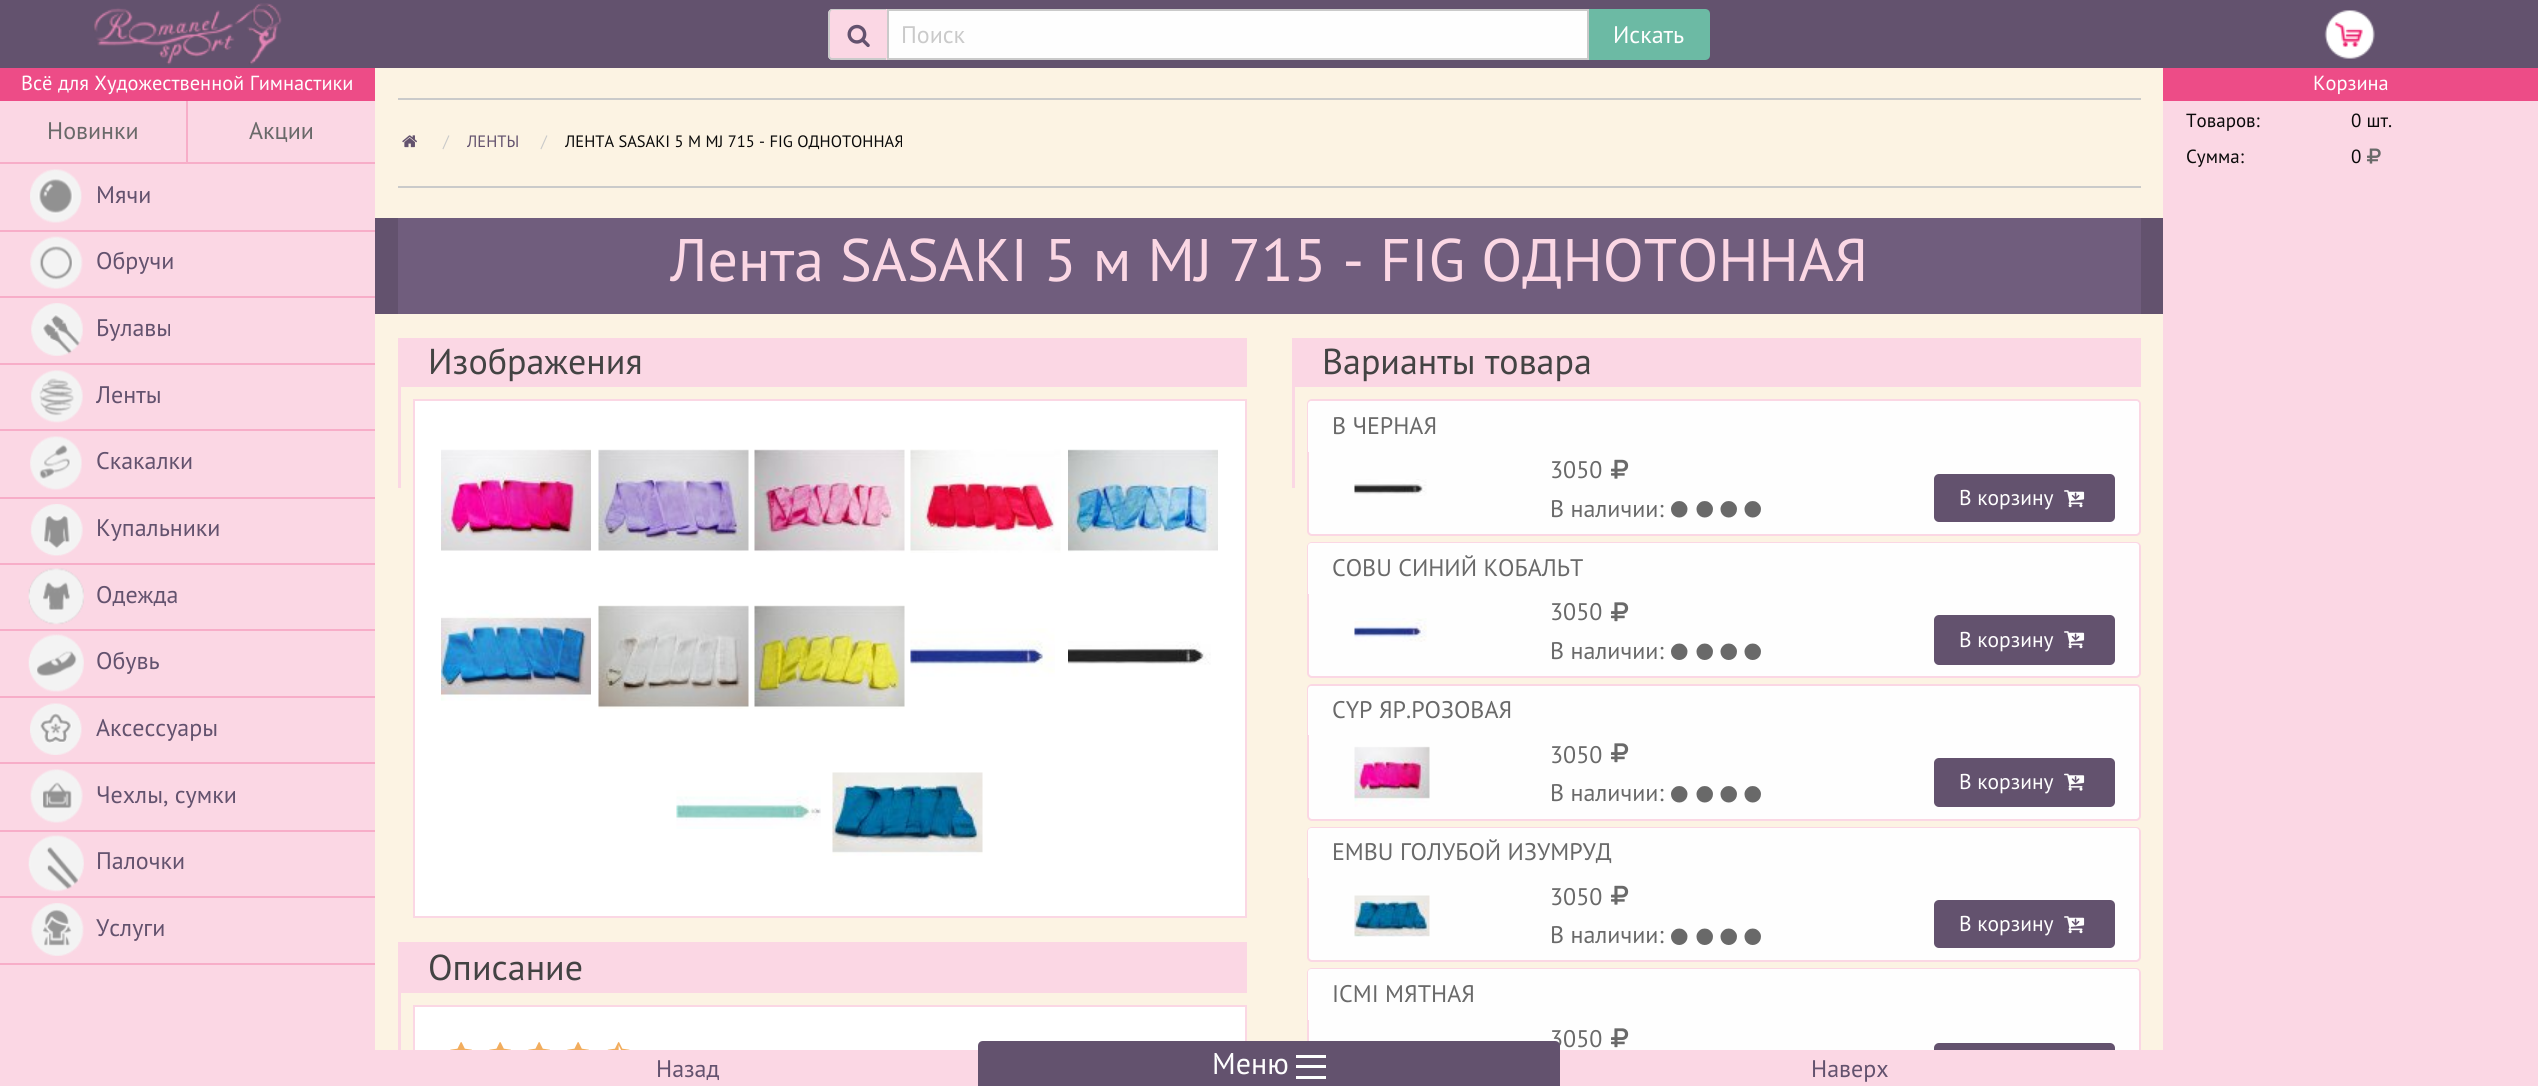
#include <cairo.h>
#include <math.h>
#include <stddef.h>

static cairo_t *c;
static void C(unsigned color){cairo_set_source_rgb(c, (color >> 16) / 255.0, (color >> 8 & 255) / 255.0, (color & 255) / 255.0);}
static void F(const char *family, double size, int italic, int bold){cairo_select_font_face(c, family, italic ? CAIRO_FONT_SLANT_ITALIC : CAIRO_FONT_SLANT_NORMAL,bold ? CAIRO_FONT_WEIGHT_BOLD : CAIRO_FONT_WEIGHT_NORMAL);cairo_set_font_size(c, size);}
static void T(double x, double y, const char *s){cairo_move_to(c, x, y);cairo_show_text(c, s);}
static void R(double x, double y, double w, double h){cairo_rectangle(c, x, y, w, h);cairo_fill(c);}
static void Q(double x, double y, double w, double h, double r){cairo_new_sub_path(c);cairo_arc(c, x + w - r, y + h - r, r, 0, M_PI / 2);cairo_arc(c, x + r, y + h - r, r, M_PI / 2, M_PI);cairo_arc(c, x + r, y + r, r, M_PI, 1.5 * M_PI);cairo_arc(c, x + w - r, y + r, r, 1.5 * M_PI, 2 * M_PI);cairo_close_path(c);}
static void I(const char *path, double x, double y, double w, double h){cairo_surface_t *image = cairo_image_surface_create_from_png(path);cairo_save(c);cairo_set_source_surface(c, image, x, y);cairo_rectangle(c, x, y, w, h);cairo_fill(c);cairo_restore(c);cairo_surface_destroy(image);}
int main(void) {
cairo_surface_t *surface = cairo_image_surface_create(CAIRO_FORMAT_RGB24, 2538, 1086);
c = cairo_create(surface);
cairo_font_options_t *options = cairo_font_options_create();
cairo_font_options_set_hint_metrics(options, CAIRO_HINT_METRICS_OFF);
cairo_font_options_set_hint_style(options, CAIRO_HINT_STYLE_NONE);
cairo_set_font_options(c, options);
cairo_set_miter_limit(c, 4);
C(0xfcf3e3);
cairo_paint(c);
C(0xfbd7e4);
R(0,101,375,985);
C(0x63526e);
R(0,0,2538,68);
I("1.png",93,3,189,62);
C(0xed4c87);
R(0,68,375,33);
F("PT Sans",20.4,0,0);
C(0xfefefe);
T(21,90,"Всё для Художественной Гимнастики");
cairo_set_source_rgba(c,0.929,0.298,0.529,0.3);
cairo_new_path(c);
cairo_move_to(c,188,100);
cairo_line_to(c,188,164);
cairo_line_to(c,186,162);
cairo_line_to(c,186,100);
cairo_close_path(c);
cairo_fill(c);
cairo_new_path(c);
cairo_move_to(c,188,164);
cairo_line_to(c,0,164);
cairo_line_to(c,0,162);
cairo_line_to(c,186,162);
cairo_close_path(c);
cairo_fill(c);
F("PT Sans",24,0,0);
C(0x696969);
T(47,139,"Новинки");
C(0xf7adc8);
R(188,162,187,2);
C(0x696969);
T(249,139,"Акции");
C(0xf7adc8);
R(0,230,375,2);
I("2.png",30,169,52,54);
C(0x63526e);
T(96,203,"Мячи");
C(0xf7adc8);
R(0,296,375,2);
I("3.png",30,236,53,53);
C(0x63526e);
T(96,269,"Обручи");
C(0xf7adc8);
R(0,363,375,2);
I("4.png",31,303,52,53);
C(0x63526e);
T(96,336,"Булавы");
C(0xf7adc8);
R(0,429,375,2);
I("5.png",31,370,52,53);
C(0x63526e);
T(96,403,"Ленты");
C(0xf7adc8);
R(0,497,375,2);
I("6.png",30,436,52,54);
C(0x63526e);
T(96,469,"Скакалки");
C(0xf7adc8);
R(0,563,375,2);
I("7.png",30,504,53,52);
C(0x63526e);
T(96,536,"Купальники");
C(0xf7adc8);
R(0,629,375,2);
I("8.png",28,568,56,57);
C(0x63526e);
T(96,603,"Одежда");
C(0xf7adc8);
R(0,696,375,2);
I("9.png",28,634,56,58);
C(0x63526e);
T(96,669,"Обувь");
C(0xf7adc8);
R(0,762,375,2);
I("10.png",30,703,52,52);
C(0x63526e);
T(96,736,"Аксессуары");
C(0xf7adc8);
R(0,830,375,2);
I("11.png",30,769,53,54);
C(0x63526e);
T(96,803,"Чехлы, сумки");
C(0xf7adc8);
R(0,896,375,2);
I("12.png",28,835,56,57);
C(0x63526e);
T(96,869,"Палочки");
C(0xf7adc8);
R(0,963,375,2);
I("13.png",31,903,53,53);
C(0x63526e);
T(96,936,"Услуги");
C(0xfbd7e4);
cairo_new_path(c);
cairo_move_to(c,833,9);
cairo_line_to(c,887,9);
cairo_line_to(c,887,60);
cairo_line_to(c,833,60);
cairo_curve_to(c,830,60,828,58,828,55);
cairo_line_to(c,828,14);
cairo_curve_to(c,828,11,830,9,833,9);
cairo_close_path(c);
cairo_fill(c);
C(0xcacaca);
cairo_set_fill_rule(c,CAIRO_FILL_RULE_EVEN_ODD);
cairo_new_path(c);
cairo_move_to(c,832,9);
cairo_line_to(c,886,9);
cairo_line_to(c,886,60);
cairo_line_to(c,832,60);
cairo_curve_to(c,830,60,828,58,828,56);
cairo_line_to(c,828,14);
cairo_curve_to(c,828,11,830,9,832,9);
cairo_close_path(c);
cairo_move_to(c,832,10);
cairo_line_to(c,886,10);
cairo_line_to(c,886,58);
cairo_line_to(c,832,58);
cairo_curve_to(c,831,58,830,57,830,56);
cairo_line_to(c,830,14);
cairo_curve_to(c,830,12,831,10,832,10);
cairo_close_path(c);
cairo_fill(c);
I("14.png",847,24,23,24);
C(0xfefefe);
cairo_rectangle(c,888,10,700,49);
cairo_fill_preserve(c);
C(0xcacaca);
cairo_stroke(c);
T(901,43,"Поиск");
C(0x6cbaa4);
cairo_new_path(c);
cairo_move_to(c,1589,9);
cairo_line_to(c,1705,9);
cairo_curve_to(c,1708,9,1710,11,1710,14);
cairo_line_to(c,1710,55);
cairo_curve_to(c,1710,58,1708,60,1705,60);
cairo_line_to(c,1589,60);
cairo_close_path(c);
cairo_fill(c);
C(0xfefefe);
T(1613,43,"Искать");
C(0xcacaca);
R(398,98,1743,2);
I("15.png",402,135,15,13);
F("PT Sans",16.5,0,0);
T(443,147,"/");
C(0x63526e);
T(467,147,"ЛЕНТЫ");
C(0xcacaca);
T(541,147,"/");
C(0x0a0a0a);
T(565,147,"ЛЕНТА SASAKI 5 М MJ 715 - FIG ОДНОТОННАЯ");
C(0xcacaca);
R(398,186,1743,2);
C(0x63526e);
R(375,218,1788,96);
C(0x705d7d);
R(398,218,1743,96);
F("PT Sans",60,0,0);
C(0xfbd7e4);
T(670,281,"Лента SASAKI 5 м MJ 715 - FIG ОДНОТОННАЯ");
R(398,338,3,150);
R(401,338,846,49);
F("PT Sans",36,0,0);
C(0x434343);
T(428,374,"Изображения");
C(0xffffff);
cairo_rectangle(c,414,400,832,517);
cairo_fill_preserve(c);
C(0xfbd7e4);
cairo_stroke(c);
I("16.png",441,449,150,102);
I("17.png",598,449,151,102);
I("18.png",754,449,151,103);
I("19.png",910,449,151,104);
I("20.png",1068,449,150,103);
I("21.png",441,610,150,91);
I("22.png",598,605,151,104);
I("23.png",754,605,151,104);
I("24.png",910,628,145,49);
I("25.png",1068,641,143,24);
I("26.png",676,790,145,39);
I("27.png",832,772,151,84);
R(398,942,3,108);
R(401,942,846,51);
C(0x434343);
T(428,980,"Описание");
C(0xffffff);
R(415,1007,830,43);
cairo_rectangle(c,414,1006,832,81);
C(0xfbd7e4);
cairo_stroke(c);
I("28.png",450,1042,22,8);
I("28.png",489,1042,22,8);
I("28.png",528,1042,22,8);
I("28.png",567,1042,22,8);
I("29.png",607,1042,23,8);
R(1292,338,3,150);
R(1295,338,846,49);
C(0x434343);
T(1322,374,"Варианты товара");
C(0xfefefe);
Q(1308,400,832,135,4);
cairo_fill_preserve(c);
C(0xfbd7e4);
cairo_stroke(c);
C(0xfefefe);
cairo_new_path(c);
cairo_move_to(c,1311,401);
cairo_line_to(c,2136,401);
cairo_curve_to(c,2137.5,401,2139,402.5,2139,404);
cairo_line_to(c,2139,452);
cairo_line_to(c,1308,452);
cairo_line_to(c,1308,404);
cairo_curve_to(c,1308,402.5,1309.5,401,1311,401);
cairo_close_path(c);
cairo_fill(c);
F("PT Sans",24,0,0);
C(0x696969);
T(1332,434,"B ЧЕРНАЯ");
I("30.png",1354,479,73,17);
T(1550,478,"3050");
I("31.png",1611,459,18,20);
T(1550,517,"В наличии:");
I("32.png",1671,501,17,17);
I("33.png",1696,501,17,17);
I("33.png",1720,501,17,17);
I("33.png",1744,501,17,17);
C(0x63526e);
Q(1934,474,181,48,5);
cairo_fill(c);
F("PT Sans",21.5,0,0);
C(0xfefefe);
T(1959,505,"В корзину");
I("34.png",2064,490,21,18);
Q(1308,543,832,134,4);
cairo_fill_preserve(c);
C(0xfbd7e4);
cairo_stroke(c);
C(0xfefefe);
cairo_new_path(c);
cairo_move_to(c,1311,543);
cairo_line_to(c,2136,543);
cairo_curve_to(c,2137.5,543,2139,544.5,2139,546);
cairo_line_to(c,2139,594);
cairo_line_to(c,1308,594);
cairo_line_to(c,1308,546);
cairo_curve_to(c,1308,544.5,1309.5,543,1311,543);
cairo_close_path(c);
cairo_fill(c);
F("PT Sans",24,0,0);
C(0x696969);
T(1332,576,"COBU СИНИЙ КОБАЛЬТ");
I("35.png",1354,618,73,24);
T(1550,620,"3050");
I("36.png",1611,602,18,20);
T(1550,659,"В наличии:");
I("37.png",1671,643,17,17);
I("38.png",1696,643,17,17);
I("38.png",1720,643,17,17);
I("38.png",1744,643,17,17);
C(0x63526e);
Q(1934,615,181,50,5);
cairo_fill(c);
F("PT Sans",21.5,0,0);
C(0xfefefe);
T(1959,647,"В корзину");
I("34.png",2064,631,21,18);
Q(1308,685,832,135,4);
cairo_fill_preserve(c);
C(0xfbd7e4);
cairo_stroke(c);
C(0xfefefe);
cairo_new_path(c);
cairo_move_to(c,1311,686);
cairo_line_to(c,2136,686);
cairo_curve_to(c,2137.5,686,2139,687.5,2139,689);
cairo_line_to(c,2139,735);
cairo_line_to(c,1308,735);
cairo_line_to(c,1308,689);
cairo_curve_to(c,1308,687.5,1309.5,686,1311,686);
cairo_close_path(c);
cairo_fill(c);
F("PT Sans",24,0,0);
C(0x696969);
T(1332,718,"CYP ЯР.РОЗОВАЯ");
I("39.png",1354,746,76,61);
T(1550,763,"3050");
I("36.png",1611,743,18,20);
T(1550,801,"В наличии:");
I("32.png",1671,786,17,17);
I("33.png",1696,786,17,17);
I("33.png",1720,786,17,17);
I("33.png",1744,786,17,17);
C(0x63526e);
Q(1934,758,181,49,5);
cairo_fill(c);
F("PT Sans",21.5,0,0);
C(0xfefefe);
T(1959,789,"В корзину");
I("40.png",2064,773,21,18);
Q(1308,828,832,133,4);
cairo_fill_preserve(c);
C(0xfbd7e4);
cairo_stroke(c);
C(0xfefefe);
cairo_new_path(c);
cairo_move_to(c,1311,828);
cairo_line_to(c,2136,828);
cairo_curve_to(c,2137.5,828,2139,829.5,2139,831);
cairo_line_to(c,2139,878);
cairo_line_to(c,1308,878);
cairo_line_to(c,1308,831);
cairo_curve_to(c,1308,829.5,1309.5,828,1311,828);
cairo_close_path(c);
cairo_fill(c);
F("PT Sans",24,0,0);
C(0x696969);
T(1332,860,"EMBU ГОЛУБОЙ ИЗУМРУД");
I("41.png",1354,895,76,42);
T(1550,905,"3050");
I("31.png",1611,885,18,20);
T(1550,943,"В наличии:");
I("37.png",1671,928,17,17);
I("38.png",1696,928,17,17);
I("38.png",1720,928,17,17);
I("38.png",1744,928,17,17);
C(0x63526e);
Q(1934,900,181,48,5);
cairo_fill(c);
F("PT Sans",21.5,0,0);
C(0xfefefe);
T(1959,931,"В корзину");
I("34.png",2064,916,21,18);
Q(1308,969,832,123,4);
cairo_fill_preserve(c);
C(0xfbd7e4);
cairo_stroke(c);
C(0xfefefe);
cairo_new_path(c);
cairo_move_to(c,1311,969);
cairo_line_to(c,2136,969);
cairo_curve_to(c,2137.5,969,2139,970.5,2139,972);
cairo_line_to(c,2139,1020);
cairo_line_to(c,1308,1020);
cairo_line_to(c,1308,972);
cairo_curve_to(c,1308,970.5,1309.5,969,1311,969);
cairo_close_path(c);
cairo_fill(c);
F("PT Sans",24,0,0);
C(0x696969);
T(1332,1002,"ICMI МЯТНАЯ");
T(1550,1047,"3050");
I("36.png",1611,1028,18,20);
C(0x63526e);
Q(1934,1043,181,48,5);
cairo_fill(c);
C(0xfbd7e4);
R(375,1050,1788,36);
C(0x63526e);
T(656,1077,"Назад");
cairo_new_path(c);
cairo_move_to(c,983,1041);
cairo_line_to(c,1555,1041);
cairo_curve_to(c,1558,1041,1560,1043,1560,1046);
cairo_line_to(c,1560,1086);
cairo_line_to(c,978,1086);
cairo_line_to(c,978,1046);
cairo_curve_to(c,978,1043,980,1041,983,1041);
cairo_close_path(c);
cairo_fill(c);
F("PT Sans",30,0,0);
C(0xfefefe);
T(1212,1074,"Меню");
R(1296,1076,30,3);
R(1296,1065,30,3);
R(1296,1055,30,3);
F("PT Sans",24,0,0);
C(0x63526e);
T(1811,1077,"Наверх");
C(0xfbd7e4);
R(2163,101,375,985);
I("42.png",2324,10,51,49);
C(0xed4c87);
R(2163,68,375,33);
F("PT Sans",20.4,0,0);
C(0xfefefe);
T(2313,90,"Корзина");
F("PT Sans",19,0,0);
C(0x0a0a0a);
T(2186,127,"Товаров:");
T(2351,127,"0 шт.");
T(2186,163,"Сумма:");
T(2351,163,"0");
I("43.png",2367,148,14,16);
cairo_surface_write_to_png(surface, "o.png");
cairo_font_options_destroy(options);
cairo_destroy(c);
cairo_surface_destroy(surface);
return 0;
}
